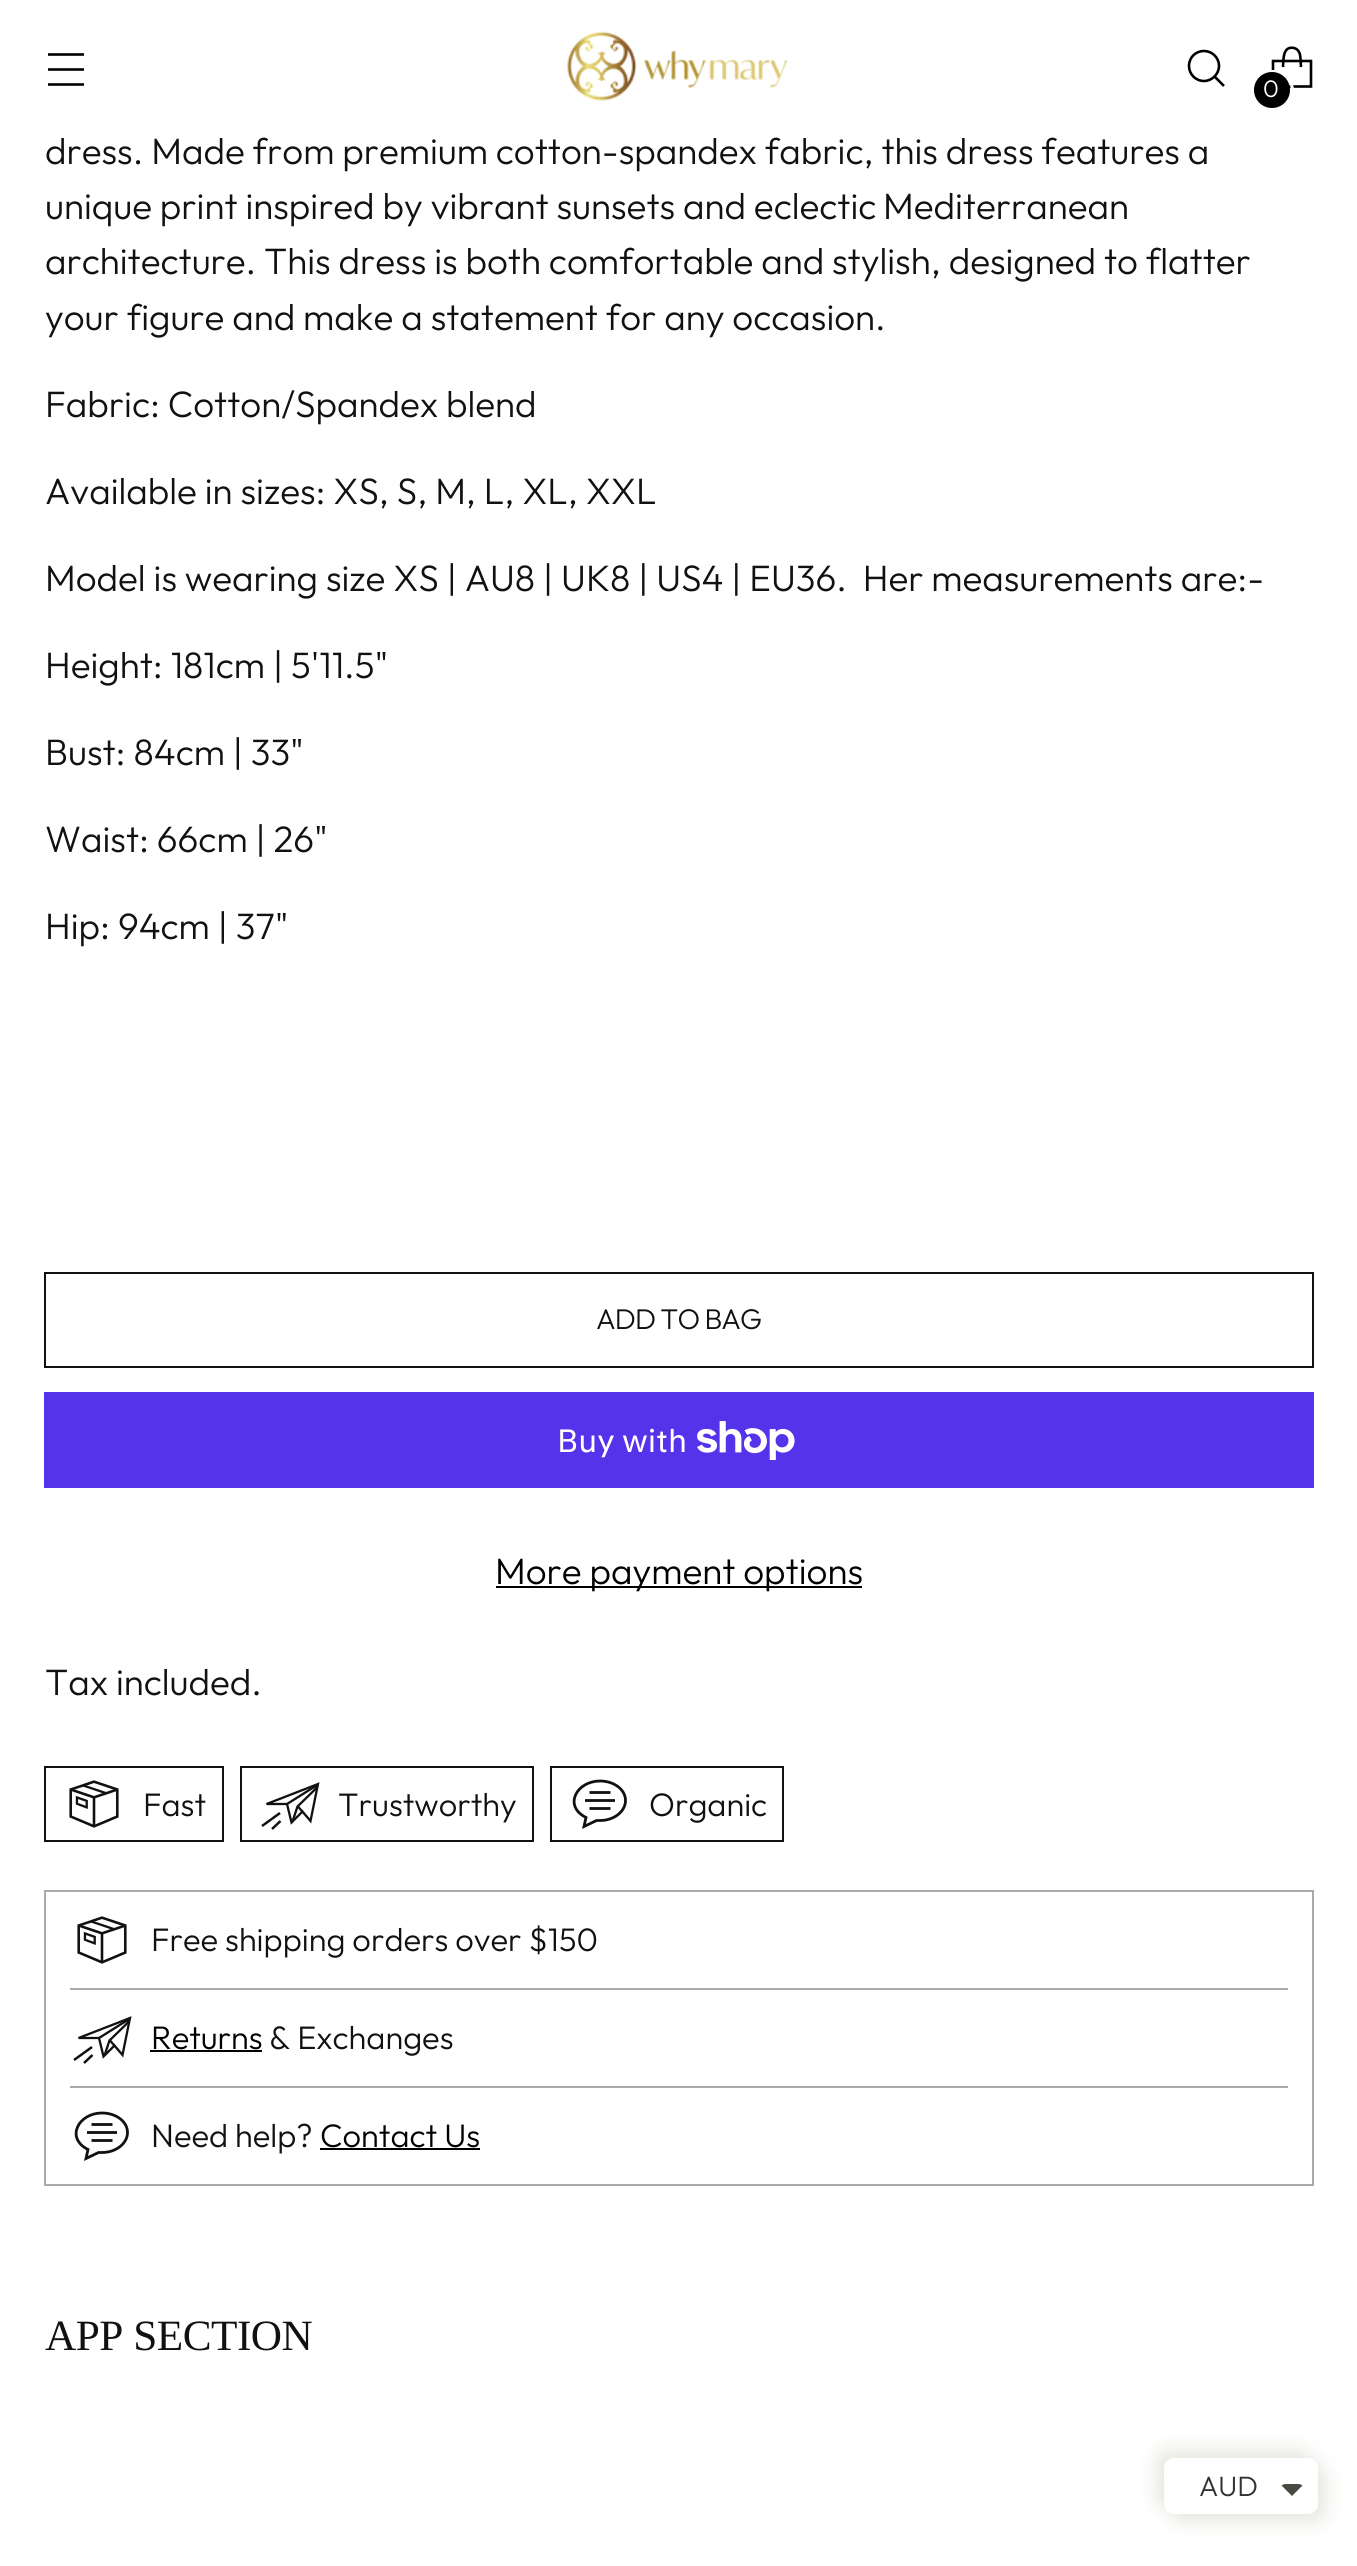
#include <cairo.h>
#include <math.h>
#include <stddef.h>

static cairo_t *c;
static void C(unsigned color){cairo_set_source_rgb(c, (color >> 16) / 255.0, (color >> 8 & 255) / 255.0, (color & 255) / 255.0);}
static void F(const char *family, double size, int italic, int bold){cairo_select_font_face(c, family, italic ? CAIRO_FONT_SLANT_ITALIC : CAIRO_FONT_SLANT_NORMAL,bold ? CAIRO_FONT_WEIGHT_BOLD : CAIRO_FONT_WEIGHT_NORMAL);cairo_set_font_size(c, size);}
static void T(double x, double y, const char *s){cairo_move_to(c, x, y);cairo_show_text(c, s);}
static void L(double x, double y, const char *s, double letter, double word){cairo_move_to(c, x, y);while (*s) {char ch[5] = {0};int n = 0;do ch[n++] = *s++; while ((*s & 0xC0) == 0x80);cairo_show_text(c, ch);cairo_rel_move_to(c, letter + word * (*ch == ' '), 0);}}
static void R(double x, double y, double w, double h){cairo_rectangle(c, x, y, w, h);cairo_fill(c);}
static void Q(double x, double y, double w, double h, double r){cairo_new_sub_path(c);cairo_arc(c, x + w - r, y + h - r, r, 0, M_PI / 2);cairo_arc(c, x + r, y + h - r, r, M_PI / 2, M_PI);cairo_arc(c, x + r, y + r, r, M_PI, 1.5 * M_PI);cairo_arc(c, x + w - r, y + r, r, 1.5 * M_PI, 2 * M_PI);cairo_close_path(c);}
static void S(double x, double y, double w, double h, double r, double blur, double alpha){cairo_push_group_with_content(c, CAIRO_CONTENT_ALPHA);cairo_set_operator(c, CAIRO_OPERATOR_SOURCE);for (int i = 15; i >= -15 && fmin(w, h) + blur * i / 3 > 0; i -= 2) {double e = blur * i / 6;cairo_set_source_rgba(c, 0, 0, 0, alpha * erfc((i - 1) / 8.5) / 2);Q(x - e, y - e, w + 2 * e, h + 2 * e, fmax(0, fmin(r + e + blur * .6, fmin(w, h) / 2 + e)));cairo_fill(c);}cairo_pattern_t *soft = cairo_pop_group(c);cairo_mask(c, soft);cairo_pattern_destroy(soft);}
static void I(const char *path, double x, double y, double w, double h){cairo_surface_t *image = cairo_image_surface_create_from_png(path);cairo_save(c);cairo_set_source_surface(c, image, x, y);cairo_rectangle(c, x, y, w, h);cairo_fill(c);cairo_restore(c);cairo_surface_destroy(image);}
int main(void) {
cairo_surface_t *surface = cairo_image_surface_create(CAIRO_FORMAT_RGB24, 1357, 2566);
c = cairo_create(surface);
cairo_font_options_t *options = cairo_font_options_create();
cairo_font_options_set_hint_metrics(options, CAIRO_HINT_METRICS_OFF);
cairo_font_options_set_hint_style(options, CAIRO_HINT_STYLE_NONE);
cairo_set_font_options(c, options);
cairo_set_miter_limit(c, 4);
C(0xffffff);
cairo_paint(c);
cairo_new_path(c);
cairo_move_to(c,48,69.5);
cairo_line_to(c,84,69.5);
cairo_move_to(c,48,54.5);
cairo_line_to(c,84,54.5);
cairo_move_to(c,48,84.5);
cairo_line_to(c,84,84.5);
C(0x000000);
cairo_set_line_width(c,2.6);
cairo_stroke(c);
I("1.png",567,31,221,70);
cairo_new_path(c);
cairo_move_to(c,1204,81);
cairo_curve_to(c,1212,81,1219,74,1219,66);
cairo_curve_to(c,1219,57.5,1212,51,1204,51);
cairo_curve_to(c,1195.5,51,1189,57.5,1189,66);
cairo_curve_to(c,1189,74,1195.5,81,1204,81);
cairo_close_path(c);
cairo_set_line_cap(c,CAIRO_LINE_CAP_ROUND);
cairo_stroke(c);
cairo_new_path(c);
cairo_move_to(c,1214.5,76.5);
cairo_line_to(c,1224,86);
cairo_set_line_cap(c,CAIRO_LINE_CAP_BUTT);
cairo_stroke(c);
cairo_new_path(c);
cairo_move_to(c,1301,67);
cairo_curve_to(c,1300.5,62.5,1301,57.5,1299.5,53);
cairo_curve_to(c,1298.5,50.5,1296.5,48.5,1294,48);
cairo_curve_to(c,1282.5,45.5,1283.5,60,1283,67);
cairo_set_line_join(c,CAIRO_LINE_JOIN_BEVEL);
cairo_stroke(c);
cairo_new_path(c);
cairo_move_to(c,1311,86.5);
cairo_line_to(c,1311,61);
cairo_line_to(c,1273,61);
cairo_line_to(c,1273,86.5);
cairo_close_path(c);
cairo_set_line_join(c,CAIRO_LINE_JOIN_MITER);
cairo_stroke(c);
cairo_arc(c,1273,91,19.5,0,2 * M_PI);
C(0xffffff);
cairo_set_line_width(c,3);
cairo_stroke(c);
C(0x000000);
cairo_arc(c,1272,90,18,0,2 * M_PI);
cairo_fill(c);
F("Outfit Light",24,0,0);
C(0xffffff);
T(1263,97,"0");
F("Outfit Light",36.75,0,0);
C(0x111111);
T(45,164,"dress. Made from premium cotton-spandex fabric, this dress features a");
T(45,219,"unique print inspired by vibrant sunsets and eclectic");
T(883,219,"Mediterranean");
T(45,274,"architecture. This dress is both comfortable and stylish, designed to flatter");
T(45,330,"your figure and make a statement for any occasion.");
T(45,417,"Fabric: Cotton/Spandex blend");
T(45,504,"Available in sizes: XS, S, M, L, XL, XXL");
T(45,591,"Model is wearing size XS | AU8 | UK8 | US4 | EU36.  Her measurements are:-");
T(45,678,"Height: 181cm | 5'11.5\"");
T(45,765,"Bust: 84cm | 33\"");
T(45,852,"Waist: 66cm | 26\"");
T(45,939,"Hip: 94cm | 37\"");
cairo_rectangle(c,45,1273,1268,94);
cairo_set_line_width(c,2);
cairo_stroke(c);
F("Outfit Light",28.5,0,0);
L(596,1329,"ADD TO BAG",-.9,0);
C(0x5433eb);
R(44,1392,1270,96);
F("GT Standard",32,0,0);
C(0xffffff);
T(557,1452,"Buy with");
I("2.png",697,1421,98,39);
C(0x000000);
R(496,1586,366,2);
F("Outfit Light",36.75,0,0);
T(495,1584,"More payment options");
C(0x111111);
T(45,1695,"Tax included.");
cairo_rectangle(c,45,1767,178,74);
cairo_stroke(c);
I("3.png",69,1780,50,48);
F("Outfit Light",32.6,0,0);
T(143,1816,"Fast");
cairo_rectangle(c,241,1767,292,74);
cairo_stroke(c);
cairo_new_path(c);
cairo_move_to(c,280,1813);
cairo_line_to(c,262,1826);
cairo_move_to(c,280.5,1821);
cairo_line_to(c,272,1829);
cairo_set_line_width(c,2.5);
cairo_stroke(c);
cairo_new_path(c);
cairo_move_to(c,266.5,1804);
cairo_line_to(c,318,1784);
cairo_line_to(c,310.5,1821);
cairo_line_to(c,302.5,1811.5);
cairo_line_to(c,291.5,1822.5);
cairo_line_to(c,287,1804);
cairo_close_path(c);
cairo_move_to(c,298,1806.5);
cairo_line_to(c,310.5,1821);
cairo_set_line_width(c,2.3);
cairo_set_line_cap(c,CAIRO_LINE_CAP_ROUND);
cairo_stroke(c);
cairo_new_path(c);
cairo_move_to(c,292.5,1821.5);
cairo_line_to(c,297.5,1806.5);
cairo_line_to(c,317.5,1787);
cairo_move_to(c,287,1804);
cairo_line_to(c,318,1784.5);
cairo_set_line_cap(c,CAIRO_LINE_CAP_BUTT);
cairo_stroke(c);
T(338,1816,"Trustworthy");
cairo_rectangle(c,551,1767,232,74);
cairo_set_line_width(c,2);
cairo_stroke(c);
cairo_new_path(c);
cairo_move_to(c,585,1800.5);
cairo_line_to(c,615,1800.5);
cairo_move_to(c,589.5,1792.5);
cairo_line_to(c,610.5,1792.5);
cairo_move_to(c,589.5,1808.5);
cairo_line_to(c,610.5,1808.5);
cairo_set_line_width(c,2.8);
cairo_stroke(c);
cairo_new_path(c);
cairo_move_to(c,600,1781);
cairo_curve_to(c,576.5,1781,563,1806,586,1817.5);
cairo_line_to(c,584,1826.5);
cairo_line_to(c,596.5,1820.5);
cairo_line_to(c,600,1820.5);
cairo_curve_to(c,614,1820.5,625.5,1811.5,625.5,1800.5);
cairo_curve_to(c,625.5,1789.5,614,1781,600,1781);
cairo_close_path(c);
cairo_set_line_cap(c,CAIRO_LINE_CAP_ROUND);
cairo_stroke(c);
T(649,1816,"Organic");
cairo_rectangle(c,45,1891,1268,294);
C(0xaaaaaa);
cairo_set_line_width(c,2);
cairo_set_line_cap(c,CAIRO_LINE_CAP_BUTT);
cairo_stroke(c);
I("3.png",77,1916,50,48);
C(0x111111);
T(151,1951,"Free shipping orders over $150");
C(0xaaaaaa);
R(70,1988,1218,2);
cairo_new_path(c);
cairo_move_to(c,92,2047);
cairo_line_to(c,74,2060);
cairo_move_to(c,92.5,2055);
cairo_line_to(c,84,2063);
C(0x111111);
cairo_set_line_width(c,2.5);
cairo_stroke(c);
cairo_new_path(c);
cairo_move_to(c,78.5,2038);
cairo_line_to(c,130,2018);
cairo_line_to(c,122.5,2055);
cairo_line_to(c,114.5,2045.5);
cairo_line_to(c,103.5,2056.5);
cairo_line_to(c,99,2038);
cairo_close_path(c);
cairo_move_to(c,110,2040.5);
cairo_line_to(c,122.5,2055);
cairo_set_line_width(c,2.3);
cairo_set_line_cap(c,CAIRO_LINE_CAP_ROUND);
cairo_stroke(c);
cairo_new_path(c);
cairo_move_to(c,104.5,2055.5);
cairo_line_to(c,109.5,2040.5);
cairo_line_to(c,129.5,2021);
cairo_move_to(c,99,2038);
cairo_line_to(c,130,2018.5);
cairo_set_line_cap(c,CAIRO_LINE_CAP_BUTT);
cairo_stroke(c);
C(0x000000);
T(151,2049,"Returns");
R(150,2050,112,2);
C(0x111111);
T(269,2049,"& Exchanges");
C(0xaaaaaa);
R(70,2086,1218,2);
cairo_new_path(c);
cairo_move_to(c,87,2132.5);
cairo_line_to(c,117,2132.5);
cairo_move_to(c,91.5,2124.5);
cairo_line_to(c,112.5,2124.5);
cairo_move_to(c,91.5,2140.5);
cairo_line_to(c,112.5,2140.5);
C(0x111111);
cairo_set_line_width(c,2.8);
cairo_stroke(c);
cairo_new_path(c);
cairo_move_to(c,102,2113);
cairo_curve_to(c,78.5,2113,65,2138,88,2149.5);
cairo_line_to(c,86,2158.5);
cairo_line_to(c,98.5,2152.5);
cairo_line_to(c,102,2152.5);
cairo_curve_to(c,116,2152.5,127.5,2143.5,127.5,2132.5);
cairo_curve_to(c,127.5,2121.5,116,2113,102,2113);
cairo_close_path(c);
cairo_set_line_cap(c,CAIRO_LINE_CAP_ROUND);
cairo_stroke(c);
T(151,2147,"Need help?");
C(0x000000);
T(320,2147,"Contact Us");
R(320,2148,160,2);
F("Liberation Serif",43.25,0,0);
C(0x111111);
L(45,2350,"APP SECTION",-.5,0);
C(0xe8e8e2);
S(1156,2450,154,56,10,9,1);
S(1172,2466,154,56,10,9,1);
C(0xffffff);
Q(1164,2458,154,56,10);
cairo_fill(c);
F("Outfit Light",28,0,0);
C(0x333333);
T(1199,2496,"AUD");
C(0x474942);
cairo_new_path(c);
cairo_move_to(c,1286,2484);
cairo_curve_to(c,1284,2484,1283,2484.5,1281.5,2485.5);
cairo_line_to(c,1292,2496);
cairo_line_to(c,1302.5,2485.5);
cairo_curve_to(c,1301,2484.5,1300,2484,1298,2484);
cairo_close_path(c);
cairo_fill(c);
cairo_surface_write_to_png(surface, "o.png");
cairo_font_options_destroy(options);
cairo_destroy(c);
cairo_surface_destroy(surface);
return 0;
}
